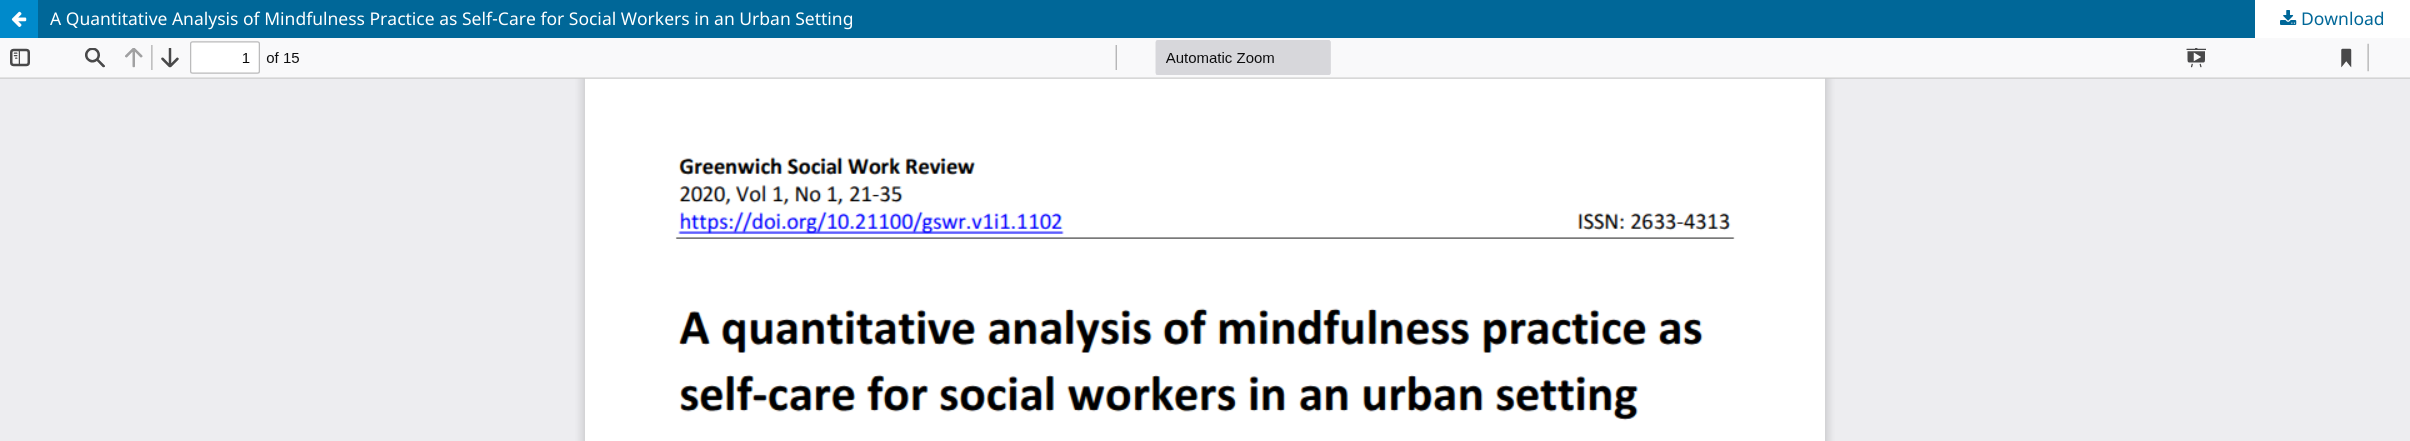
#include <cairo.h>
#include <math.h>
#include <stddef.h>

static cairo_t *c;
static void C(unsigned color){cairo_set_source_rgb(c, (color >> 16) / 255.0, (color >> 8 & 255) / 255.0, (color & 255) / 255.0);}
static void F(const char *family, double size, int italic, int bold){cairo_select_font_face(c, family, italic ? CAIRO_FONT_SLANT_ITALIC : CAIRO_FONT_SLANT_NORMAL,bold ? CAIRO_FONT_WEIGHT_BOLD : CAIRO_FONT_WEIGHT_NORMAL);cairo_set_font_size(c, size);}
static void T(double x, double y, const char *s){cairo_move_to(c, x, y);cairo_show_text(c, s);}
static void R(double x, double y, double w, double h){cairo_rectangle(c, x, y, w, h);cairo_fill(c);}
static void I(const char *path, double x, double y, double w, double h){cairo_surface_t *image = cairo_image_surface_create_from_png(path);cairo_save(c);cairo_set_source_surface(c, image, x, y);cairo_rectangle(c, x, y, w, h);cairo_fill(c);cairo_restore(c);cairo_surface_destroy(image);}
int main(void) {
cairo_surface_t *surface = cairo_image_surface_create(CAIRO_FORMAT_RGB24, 2410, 441);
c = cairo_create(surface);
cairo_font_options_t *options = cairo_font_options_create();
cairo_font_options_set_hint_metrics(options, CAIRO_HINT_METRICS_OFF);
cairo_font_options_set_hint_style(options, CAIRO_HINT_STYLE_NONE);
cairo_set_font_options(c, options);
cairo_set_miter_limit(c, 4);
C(0xffffff);
cairo_paint(c);
C(0x006798);
R(38,0,2217,38);
C(0x008acb);
R(0,0,38,38);
I("1.png",11,11,16,16);
F("Noto Sans",17.5,0,0);
C(0xffffff);
T(50,25,"A Quantitative Analysis of Mindfulness Practice as Self-Care for Social Workers in an Urban Setting");
I("2.png",2280,10,17,15);
C(0x006798);
T(2301,25,"Download");
I("3.png",0,38,2410,403);
cairo_surface_write_to_png(surface, "o.png");
cairo_font_options_destroy(options);
cairo_destroy(c);
cairo_surface_destroy(surface);
return 0;
}
